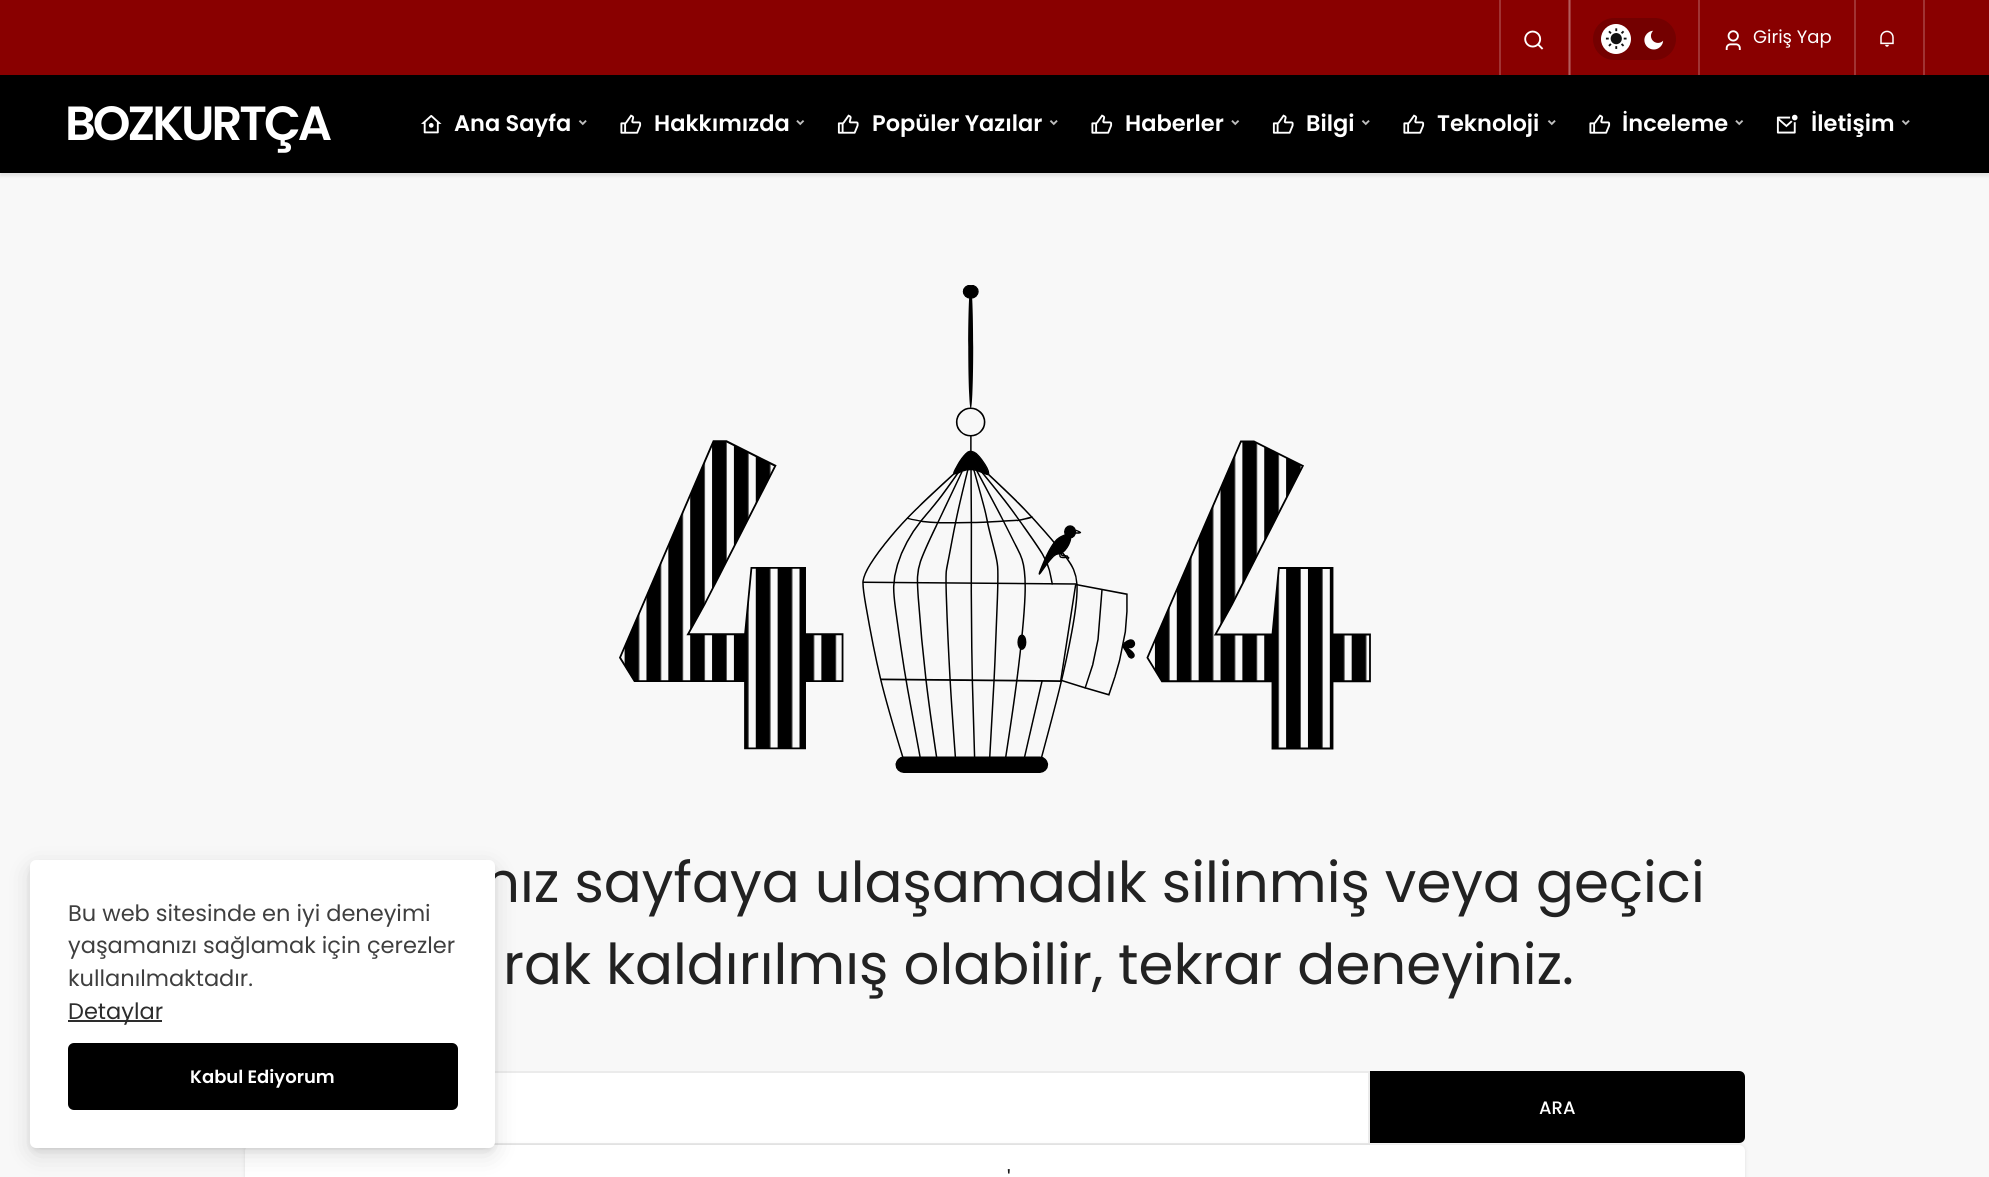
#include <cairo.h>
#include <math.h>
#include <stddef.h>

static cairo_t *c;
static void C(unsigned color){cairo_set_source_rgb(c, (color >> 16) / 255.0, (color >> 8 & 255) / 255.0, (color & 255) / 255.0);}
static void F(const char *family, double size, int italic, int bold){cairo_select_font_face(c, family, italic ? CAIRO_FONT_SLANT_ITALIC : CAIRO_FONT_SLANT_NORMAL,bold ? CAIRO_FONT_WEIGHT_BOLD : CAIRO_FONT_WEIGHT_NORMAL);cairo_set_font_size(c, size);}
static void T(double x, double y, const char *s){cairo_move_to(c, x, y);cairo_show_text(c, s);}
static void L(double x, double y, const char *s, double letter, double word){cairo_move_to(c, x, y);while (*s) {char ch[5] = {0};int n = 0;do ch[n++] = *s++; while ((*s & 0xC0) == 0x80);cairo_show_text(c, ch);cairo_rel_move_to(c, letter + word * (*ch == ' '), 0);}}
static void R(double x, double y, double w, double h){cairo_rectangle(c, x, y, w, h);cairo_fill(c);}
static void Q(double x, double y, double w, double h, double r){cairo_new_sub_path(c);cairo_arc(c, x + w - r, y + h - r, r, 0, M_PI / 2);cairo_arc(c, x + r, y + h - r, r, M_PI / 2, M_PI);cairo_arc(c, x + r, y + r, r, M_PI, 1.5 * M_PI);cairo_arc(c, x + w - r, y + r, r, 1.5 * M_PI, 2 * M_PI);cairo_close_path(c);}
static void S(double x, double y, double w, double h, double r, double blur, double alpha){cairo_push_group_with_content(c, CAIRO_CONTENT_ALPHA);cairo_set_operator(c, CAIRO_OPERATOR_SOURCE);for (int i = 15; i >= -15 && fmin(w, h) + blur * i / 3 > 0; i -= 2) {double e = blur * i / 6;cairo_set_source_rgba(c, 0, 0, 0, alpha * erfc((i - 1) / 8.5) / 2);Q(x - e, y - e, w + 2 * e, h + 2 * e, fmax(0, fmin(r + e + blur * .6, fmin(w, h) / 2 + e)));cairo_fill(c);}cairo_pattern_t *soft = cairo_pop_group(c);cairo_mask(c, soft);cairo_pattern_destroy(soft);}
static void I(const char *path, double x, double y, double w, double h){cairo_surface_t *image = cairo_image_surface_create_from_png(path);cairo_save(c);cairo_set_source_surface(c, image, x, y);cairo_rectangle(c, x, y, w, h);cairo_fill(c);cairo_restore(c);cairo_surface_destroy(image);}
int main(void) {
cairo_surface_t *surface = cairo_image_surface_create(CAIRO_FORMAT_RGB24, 1989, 1177);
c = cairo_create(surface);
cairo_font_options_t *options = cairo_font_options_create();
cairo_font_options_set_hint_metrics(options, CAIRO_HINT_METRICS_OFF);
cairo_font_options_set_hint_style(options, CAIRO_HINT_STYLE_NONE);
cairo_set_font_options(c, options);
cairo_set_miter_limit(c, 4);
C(0xf8f8f8);
cairo_paint(c);
C(0x000000);
S(0,78,1989,98,0,2,.1);
C(0x890000);
R(0,0,1989,75);
C(0xa13333);
R(1923,0,2,75);
R(1499,0,2,75);
R(1568,0,2,75);
I("1.png",1524,30,20,20);
cairo_set_source_rgba(c,1,1,1,0.2);
R(1569,0,2,75);
C(0x740000);
Q(1593,18,83,42,21);
cairo_fill(c);
C(0xffffff);
cairo_arc(c,1616,39,15,0,2 * M_PI);
cairo_fill(c);
I("2.png",1605,28,22,21);
I("3.png",1644,30,20,20);
C(0xa13333);
R(1698,0,2,75);
I("4.png",1725,30,16,20);
F("Poppins",18,0,0);
C(0xffffff);
T(1753,43,"Giriş Yap");
C(0xa13333);
R(1854,0,2,75);
I("5.png",1880,30,14,17);
C(0x000000);
R(0,75,1989,98);
F("Poppins SemiBold",48,0,0);
C(0xffffff);
L(65,140,"BOZKURTÇA",-3,0);
I("6.png",421,115,21,19);
F("Poppins SemiBold",22.5,0,0);
T(454,131,"Ana Sayfa");
I("7.png",578,120,9,6);
I("8.png",620,114,22,20);
T(654,131,"Hakkımızda");
I("9.png",796,120,9,6);
I("10.png",837,114,22,20);
T(872,131,"Popüler Yazılar");
I("7.png",1049,120,9,6);
I("8.png",1091,114,22,20);
T(1125,131,"Haberler");
I("9.png",1231,120,9,6);
I("10.png",1272,114,22,20);
T(1306,131,"Bilgi");
I("7.png",1361,120,9,6);
I("8.png",1403,114,22,20);
T(1437,131,"Teknoloji");
I("7.png",1547,120,9,6);
I("8.png",1589,114,22,20);
T(1622,131,"İnceleme");
I("9.png",1735,120,9,6);
I("11.png",1776,114,22,20);
T(1811,131,"İletişim");
I("7.png",1901,120,9,6);
I("12.png",619,285,752,488);
F("Poppins",56.25,0,0);
C(0x222222);
T(484,902,"nız sayfaya ulaşamadık silinmiş veya geçici");
T(503,984,"rak kaldırılmış olabilir, tekrar deneyiniz.");
C(0xffffff);
R(494,1073,874,70);
cairo_rectangle(c,246,1072,1123,72);
C(0xebebeb);
cairo_stroke(c);
C(0x000000);
cairo_new_path(c);
cairo_move_to(c,1370,1071);
cairo_line_to(c,1739,1071);
cairo_curve_to(c,1742.5,1071,1745,1073.5,1745,1077);
cairo_line_to(c,1745,1137);
cairo_curve_to(c,1745,1140.5,1742.5,1143,1739,1143);
cairo_line_to(c,1370,1143);
cairo_close_path(c);
cairo_fill(c);
F("Poppins Medium",18,0,0);
C(0xffffff);
T(1539,1114,"ARA");
C(0x000000);
S(245,1145,1500,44,6,2,.1);
C(0xffffff);
Q(245,1145,1500,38,6);
cairo_fill(c);
F("Poppins",22.5,0,0);
C(0x1a1a1a);
T(1007,1187,"'");
C(0x000000);
S(33,870,459,282,3,13,.15);
S(33,866,459,282,3,4,.15);
C(0xffffff);
Q(30,860,465,288,6);
cairo_fill(c);
C(0x3f3f3f);
T(68,921,"Bu web sitesinde en iyi deneyimi");
T(68,953,"yaşamanızı sağlamak için çerezler");
T(68,986,"kullanılmaktadır.");
C(0x2d2d2d);
R(68,1020,94,2);
T(68,1019,"Detaylar");
C(0x000000);
Q(68,1043,390,67,6);
cairo_fill(c);
F("Poppins SemiBold",18,0,0);
C(0xffffff);
T(190,1083,"Kabul Ediyorum");
cairo_surface_write_to_png(surface, "o.png");
cairo_font_options_destroy(options);
cairo_destroy(c);
cairo_surface_destroy(surface);
return 0;
}
